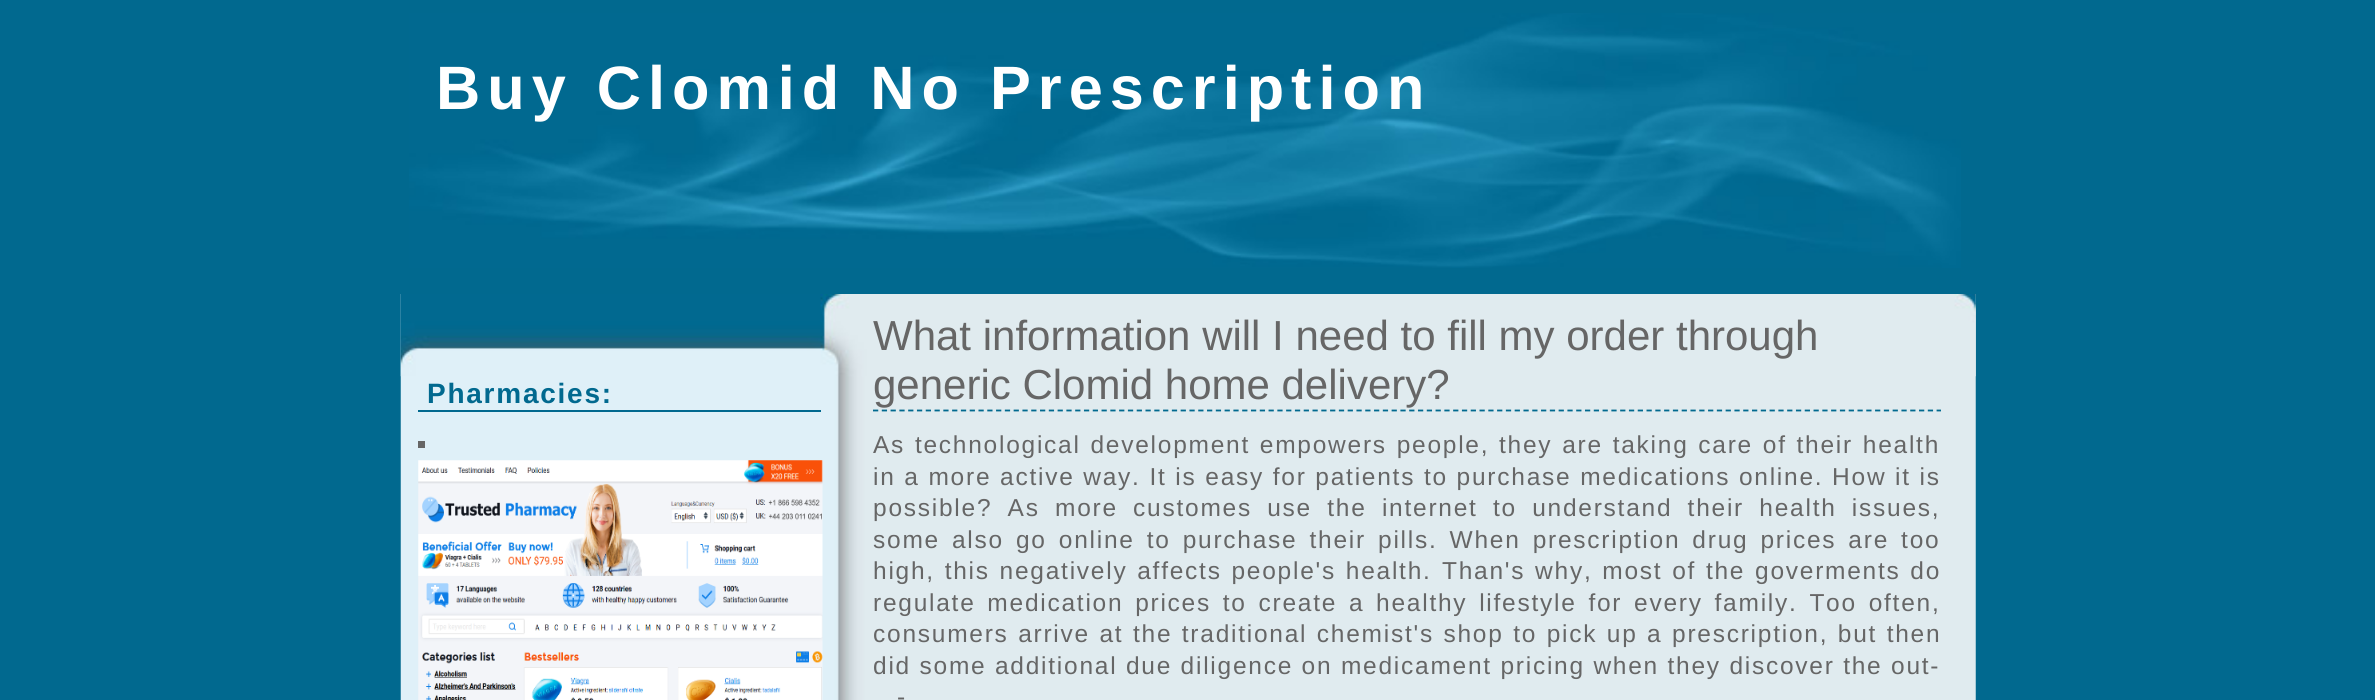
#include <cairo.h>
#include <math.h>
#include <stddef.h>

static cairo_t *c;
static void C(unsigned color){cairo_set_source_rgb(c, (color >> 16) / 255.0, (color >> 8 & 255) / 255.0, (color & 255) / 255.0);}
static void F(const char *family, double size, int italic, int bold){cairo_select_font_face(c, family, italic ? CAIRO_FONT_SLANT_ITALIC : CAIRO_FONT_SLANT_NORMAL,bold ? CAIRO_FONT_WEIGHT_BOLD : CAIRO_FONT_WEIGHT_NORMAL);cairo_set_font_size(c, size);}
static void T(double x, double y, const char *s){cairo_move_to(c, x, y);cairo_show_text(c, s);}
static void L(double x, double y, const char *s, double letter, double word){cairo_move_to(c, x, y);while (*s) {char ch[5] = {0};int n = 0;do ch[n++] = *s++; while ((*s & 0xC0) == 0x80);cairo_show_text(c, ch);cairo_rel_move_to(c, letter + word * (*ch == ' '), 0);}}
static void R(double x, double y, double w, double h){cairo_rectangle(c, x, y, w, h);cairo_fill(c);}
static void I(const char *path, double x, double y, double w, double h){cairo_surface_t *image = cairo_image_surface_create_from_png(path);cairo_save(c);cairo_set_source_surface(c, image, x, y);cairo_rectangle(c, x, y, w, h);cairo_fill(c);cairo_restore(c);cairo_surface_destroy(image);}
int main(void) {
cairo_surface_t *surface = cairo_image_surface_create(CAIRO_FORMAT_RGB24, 2375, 700);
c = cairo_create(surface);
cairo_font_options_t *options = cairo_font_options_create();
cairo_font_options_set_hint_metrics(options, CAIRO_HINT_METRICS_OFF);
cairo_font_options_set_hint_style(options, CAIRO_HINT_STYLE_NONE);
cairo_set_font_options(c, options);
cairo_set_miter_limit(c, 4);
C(0x01698f);
cairo_paint(c);
I("1.png",409,13,1552,255);
F("Liberation Sans",61.25,0,1);
C(0xffffff);
L(436,109,"Buy Clomid No Prescription",7,0);
I("2.png",400,294,1576,406);
I("3.png",400,294,1576,83);
C(0x01698f);
R(418,410,403,2);
F("Liberation Sans",28,0,1);
L(427,403,"Pharmacies:",1.75,0);
C(0x666666);
R(418,441,7,7);
I("4.png",418,460,405,240);
cairo_new_path(c);
cairo_move_to(c,873,410.5);
cairo_line_to(c,1941,410.5);
C(0x01698f);
cairo_set_line_width(c,1.8);
cairo_set_dash(c,(double[]){5.25,3.54},2,0);
cairo_stroke(c);
F("Liberation Sans",42,0,0);
C(0x666666);
T(873,350,"What information will I need to fill my order through");
T(873,399,"generic Clomid home delivery?");
F("Liberation Sans",24.5,0,0);
L(873,453,"As technological development empowers people, they are taking care of their health",1.75,1.25);
L(873,485,"in a more active way. It is easy for patients to purchase medications online. How it is",1.75,.2);
L(873,516,"possible? As more customes use the internet to understand their health issues,",1.75,6.75);
L(873,548,"some also go online to purchase their pills. When prescription drug prices are too",1.75,3.5);
L(873,579,"high, this negatively affects people's health.",1.75,1.25);
L(1442,579,"Than's why, most of the goverments do",1.75,1.25);
L(873,611,"regulate medication prices to create a healthy lifestyle for every family. Too often,",1.75,3.25);
L(873,642,"consumers arrive at the traditional chemist's shop to pick up a prescription, but then",1.75,1);
L(873,674,"did some additional due diligence on medicament pricing when they discover the out-",1.75,0);
L(897,705,"-",1.75,4);
cairo_surface_write_to_png(surface, "o.png");
cairo_font_options_destroy(options);
cairo_destroy(c);
cairo_surface_destroy(surface);
return 0;
}
